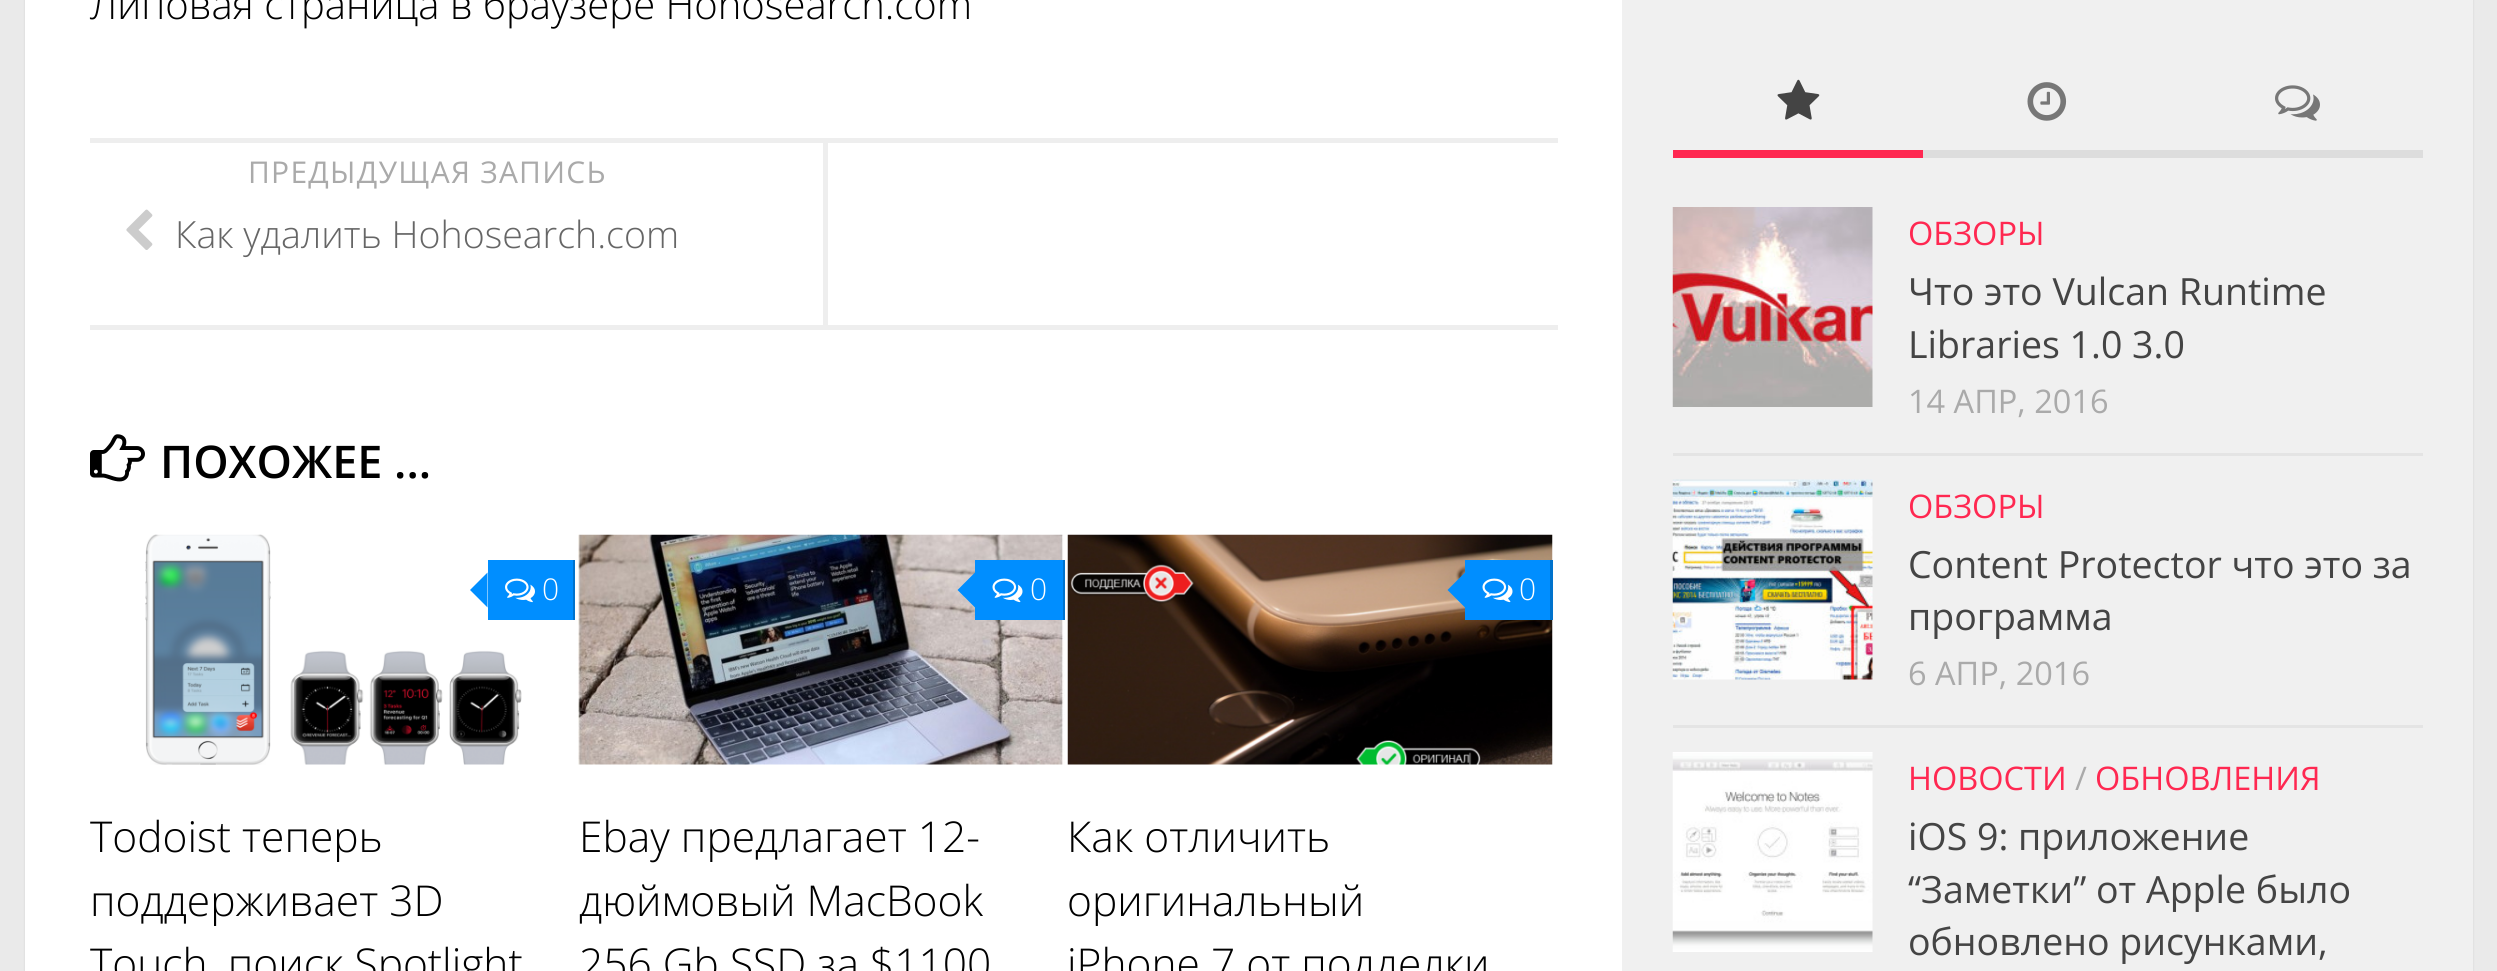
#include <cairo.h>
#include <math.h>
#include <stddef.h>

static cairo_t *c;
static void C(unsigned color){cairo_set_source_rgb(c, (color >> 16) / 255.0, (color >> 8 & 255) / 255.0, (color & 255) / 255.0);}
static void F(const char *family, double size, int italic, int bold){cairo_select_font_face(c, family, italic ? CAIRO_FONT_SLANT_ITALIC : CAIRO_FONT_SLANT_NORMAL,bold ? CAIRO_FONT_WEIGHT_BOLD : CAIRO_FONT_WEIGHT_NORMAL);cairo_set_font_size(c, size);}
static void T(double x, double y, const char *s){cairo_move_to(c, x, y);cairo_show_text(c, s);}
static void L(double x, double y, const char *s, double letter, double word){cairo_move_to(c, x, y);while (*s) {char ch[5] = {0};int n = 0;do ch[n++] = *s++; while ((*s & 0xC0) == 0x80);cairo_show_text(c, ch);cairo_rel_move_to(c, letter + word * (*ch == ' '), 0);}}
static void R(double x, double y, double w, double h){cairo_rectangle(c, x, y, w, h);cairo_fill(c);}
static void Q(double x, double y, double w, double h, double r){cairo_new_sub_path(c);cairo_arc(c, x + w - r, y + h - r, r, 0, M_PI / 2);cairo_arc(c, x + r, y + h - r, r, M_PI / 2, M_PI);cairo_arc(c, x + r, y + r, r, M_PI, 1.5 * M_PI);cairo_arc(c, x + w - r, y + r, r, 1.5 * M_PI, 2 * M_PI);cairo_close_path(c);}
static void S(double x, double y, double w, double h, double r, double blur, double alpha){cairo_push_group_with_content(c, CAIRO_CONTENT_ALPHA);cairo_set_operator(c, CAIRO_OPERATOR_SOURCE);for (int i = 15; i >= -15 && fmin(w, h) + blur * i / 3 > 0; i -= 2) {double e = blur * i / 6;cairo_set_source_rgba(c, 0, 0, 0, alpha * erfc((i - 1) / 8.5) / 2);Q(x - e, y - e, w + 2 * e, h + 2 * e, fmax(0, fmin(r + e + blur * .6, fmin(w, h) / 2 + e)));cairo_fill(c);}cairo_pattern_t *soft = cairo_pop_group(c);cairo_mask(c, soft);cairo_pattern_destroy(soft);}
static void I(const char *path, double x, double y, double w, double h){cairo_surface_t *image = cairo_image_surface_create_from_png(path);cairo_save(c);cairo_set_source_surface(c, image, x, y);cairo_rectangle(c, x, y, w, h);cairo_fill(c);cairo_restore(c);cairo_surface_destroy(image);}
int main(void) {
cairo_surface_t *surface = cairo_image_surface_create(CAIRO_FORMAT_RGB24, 2497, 971);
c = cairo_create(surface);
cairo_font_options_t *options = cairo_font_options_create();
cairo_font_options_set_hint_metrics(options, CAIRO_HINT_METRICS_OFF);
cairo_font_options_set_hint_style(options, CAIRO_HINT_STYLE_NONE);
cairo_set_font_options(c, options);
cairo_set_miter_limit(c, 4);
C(0xeaeaea);
cairo_paint(c);
C(0x000000);
S(25,-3,2448,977,0,1,.1);
C(0xffffff);
R(25,0,1597,971);
C(0xf0f0f0);
R(1622,0,851,971);
F("Open Sans Light",40,0,0);
C(0x000000);
T(90,19,"Липовая страница в браузере Hohosearch.com");
C(0xeeeeee);
R(90,138,1468,5);
R(90,325,1468,5);
R(823,143,5,182);
F("Open Sans",30,0,0);
C(0xaaaaaa);
L(248,183,"ПРЕДЫДУЩАЯ ЗАПИСЬ",1.25,0);
I("1.png",126,209,27,41);
F("Open Sans Light",37.5,0,0);
C(0x666666);
T(175,248,"Как удалить Hohosearch.com");
I("2.png",90,434,55,48);
F("Open Sans SemiBold",45,0,0);
C(0x000000);
T(160,478,"ПОХОЖЕЕ ...");
I("3.png",145,534,377,231);
C(0x008eff);
R(488,560,85,60);
C(0x0072cc);
R(573,560,2,60);
C(0x008eff);
cairo_new_path(c);
cairo_move_to(c,487.5,572.5);
cairo_line_to(c,487.5,607.5);
cairo_line_to(c,470,590);
cairo_close_path(c);
cairo_fill(c);
I("4.png",505,578,30,25);
F("Open Sans Light",30,0,0);
C(0xffffff);
T(542,600,"0");
F("Open Sans Light",42.5,0,0);
C(0x000000);
T(90,852,"Todoist теперь");
T(90,916,"поддерживает 3D");
T(90,979,"Touch, поиск Spotlight");
I("5.png",578,534,487,231);
C(0x008eff);
R(975,560,88,60);
C(0x0072cc);
R(1063,560,2,60);
C(0x008eff);
cairo_new_path(c);
cairo_move_to(c,975,572.5);
cairo_line_to(c,975,607.5);
cairo_line_to(c,957.5,590);
cairo_close_path(c);
cairo_fill(c);
I("6.png",992,578,31,25);
F("Open Sans Light",30,0,0);
C(0xffffff);
T(1030,600,"0");
F("Open Sans Light",42.5,0,0);
C(0x000000);
T(579,852,"Ebay предлагает 12-");
T(579,916,"дюймовый MacBook");
T(579,979,"256 Gb SSD за $1100");
I("7.png",1067,534,486,231);
C(0x008eff);
R(1465,560,85,60);
C(0x0072cc);
R(1550,560,3,60);
C(0x008eff);
cairo_new_path(c);
cairo_move_to(c,1465,572.5);
cairo_line_to(c,1465,607.5);
cairo_line_to(c,1447.5,590);
cairo_close_path(c);
cairo_fill(c);
I("6.png",1482,578,31,25);
F("Open Sans Light",30,0,0);
C(0xffffff);
T(1519,600,"0");
F("Open Sans Light",42.5,0,0);
C(0x000000);
T(1067,852,"Как отличить");
T(1067,916,"оригинальный");
T(1067,979,"iPhone 7 от подделки");
C(0xdddddd);
R(1923,150,500,8);
C(0xff2851);
R(1673,150,250,8);
I("8.png",1777,79,43,41);
I("9.png",2027,82,40,39);
I("10.png",2275,85,45,36);
C(0xe4e4e4);
R(1673,453,750,3);
I("11.png",1672,207,201,200);
F("Open Sans",32.5,0,0);
C(0xff2851);
T(1908,245,"ОБЗОРЫ");
F("Open Sans",37.5,0,0);
C(0x444444);
T(1908,305,"Что это Vulcan Runtime");
T(1908,358,"Libraries 1.0 3.0");
F("Open Sans",32.5,0,0);
C(0xaaaaaa);
T(1908,413,"14 АПР, 2016");
C(0xe4e4e4);
R(1673,725,750,3);
I("12.png",1672,479,201,201);
C(0xff2851);
T(1908,518,"ОБЗОРЫ");
F("Open Sans",37.5,0,0);
C(0x444444);
T(1908,578,"Content Protector что это за");
T(1908,630,"программа");
F("Open Sans",32.5,0,0);
C(0xaaaaaa);
T(1908,685,"6 АПР, 2016");
I("13.png",1672,752,201,200);
C(0xff2851);
T(1908,790,"НОВОСТИ");
C(0xaaaaaa);
T(2075,790,"/");
C(0xff2851);
T(2095,790,"ОБНОВЛЕНИЯ");
F("Open Sans",37.5,0,0);
C(0x444444);
T(1908,850,"iOS 9: приложение");
T(1908,903,"“Заметки” от Apple было");
T(1908,955,"обновлено рисунками,");
cairo_surface_write_to_png(surface, "o.png");
cairo_font_options_destroy(options);
cairo_destroy(c);
cairo_surface_destroy(surface);
return 0;
}
